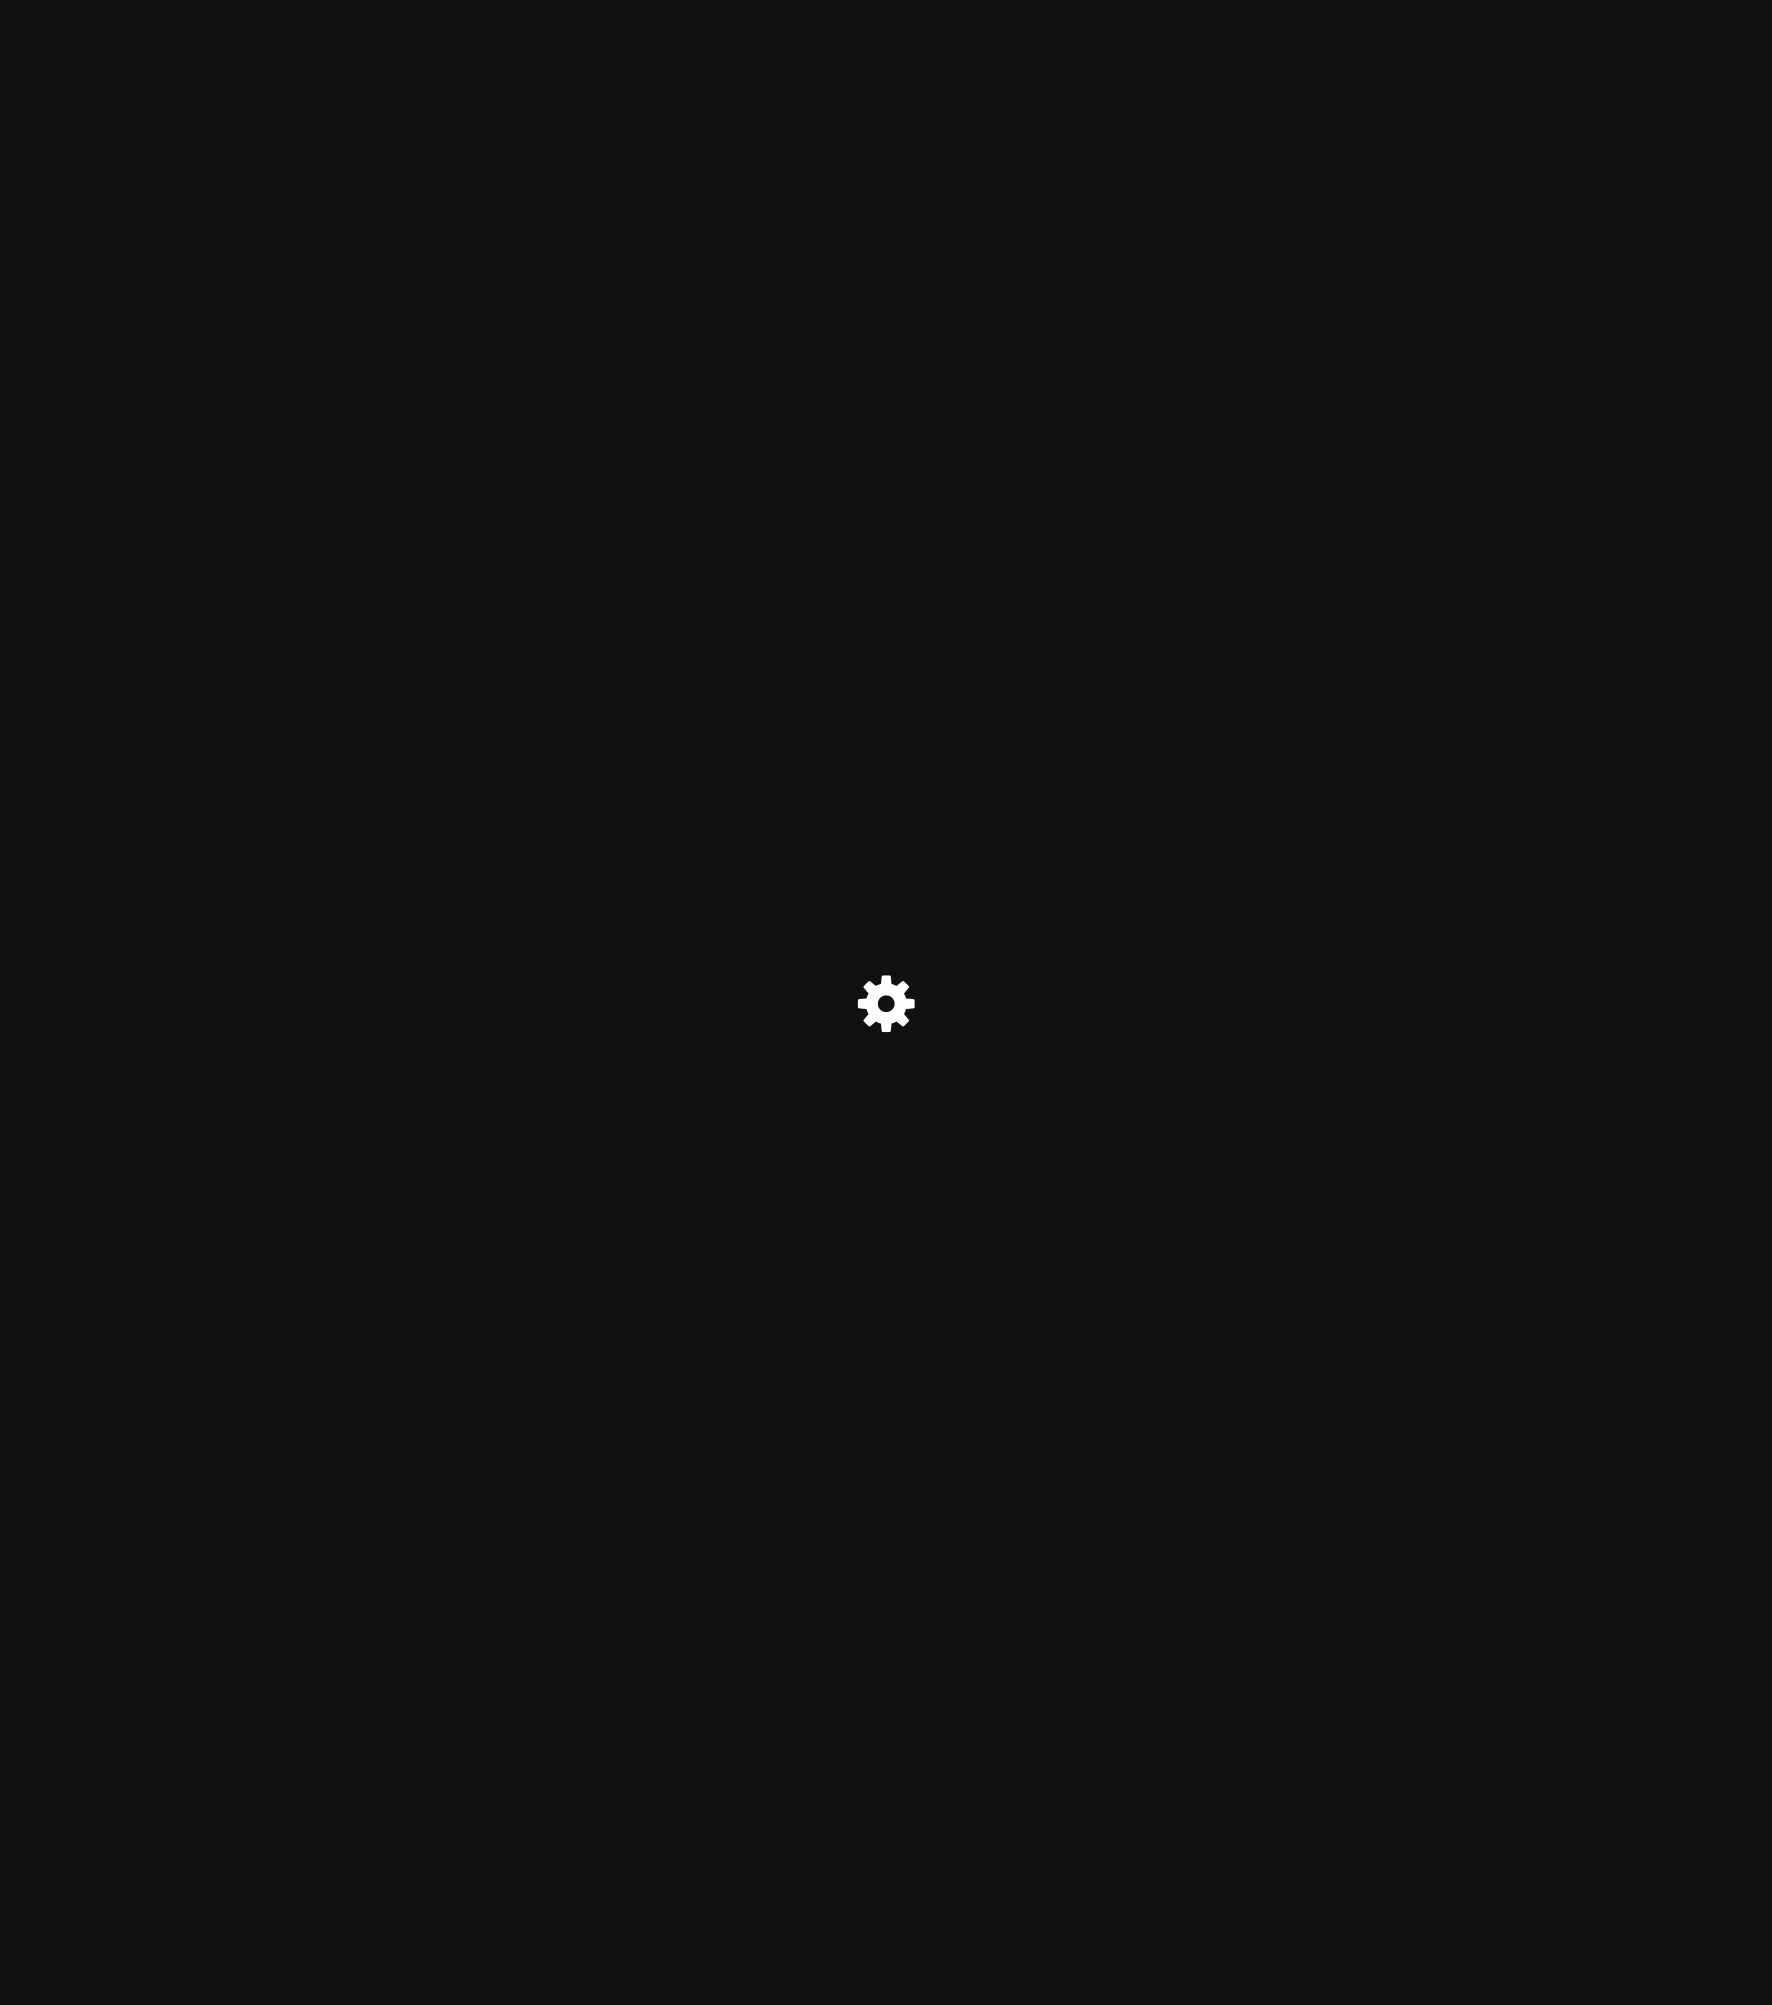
#include <cairo.h>
#include <math.h>
#include <stddef.h>

static cairo_t *c;
static void C(unsigned color){cairo_set_source_rgb(c, (color >> 16) / 255.0, (color >> 8 & 255) / 255.0, (color & 255) / 255.0);}
static void I(const char *path, double x, double y, double w, double h){cairo_surface_t *image = cairo_image_surface_create_from_png(path);cairo_save(c);cairo_set_source_surface(c, image, x, y);cairo_rectangle(c, x, y, w, h);cairo_fill(c);cairo_restore(c);cairo_surface_destroy(image);}
int main(void) {
cairo_surface_t *surface = cairo_image_surface_create(CAIRO_FORMAT_RGB24, 1772, 2005);
c = cairo_create(surface);
cairo_font_options_t *options = cairo_font_options_create();
cairo_font_options_set_hint_metrics(options, CAIRO_HINT_METRICS_OFF);
cairo_font_options_set_hint_style(options, CAIRO_HINT_STYLE_NONE);
cairo_set_font_options(c, options);
cairo_set_miter_limit(c, 4);
C(0x111111);
cairo_paint(c);
I("1.png",857,975,58,58);
cairo_surface_write_to_png(surface, "o.png");
cairo_font_options_destroy(options);
cairo_destroy(c);
cairo_surface_destroy(surface);
return 0;
}
